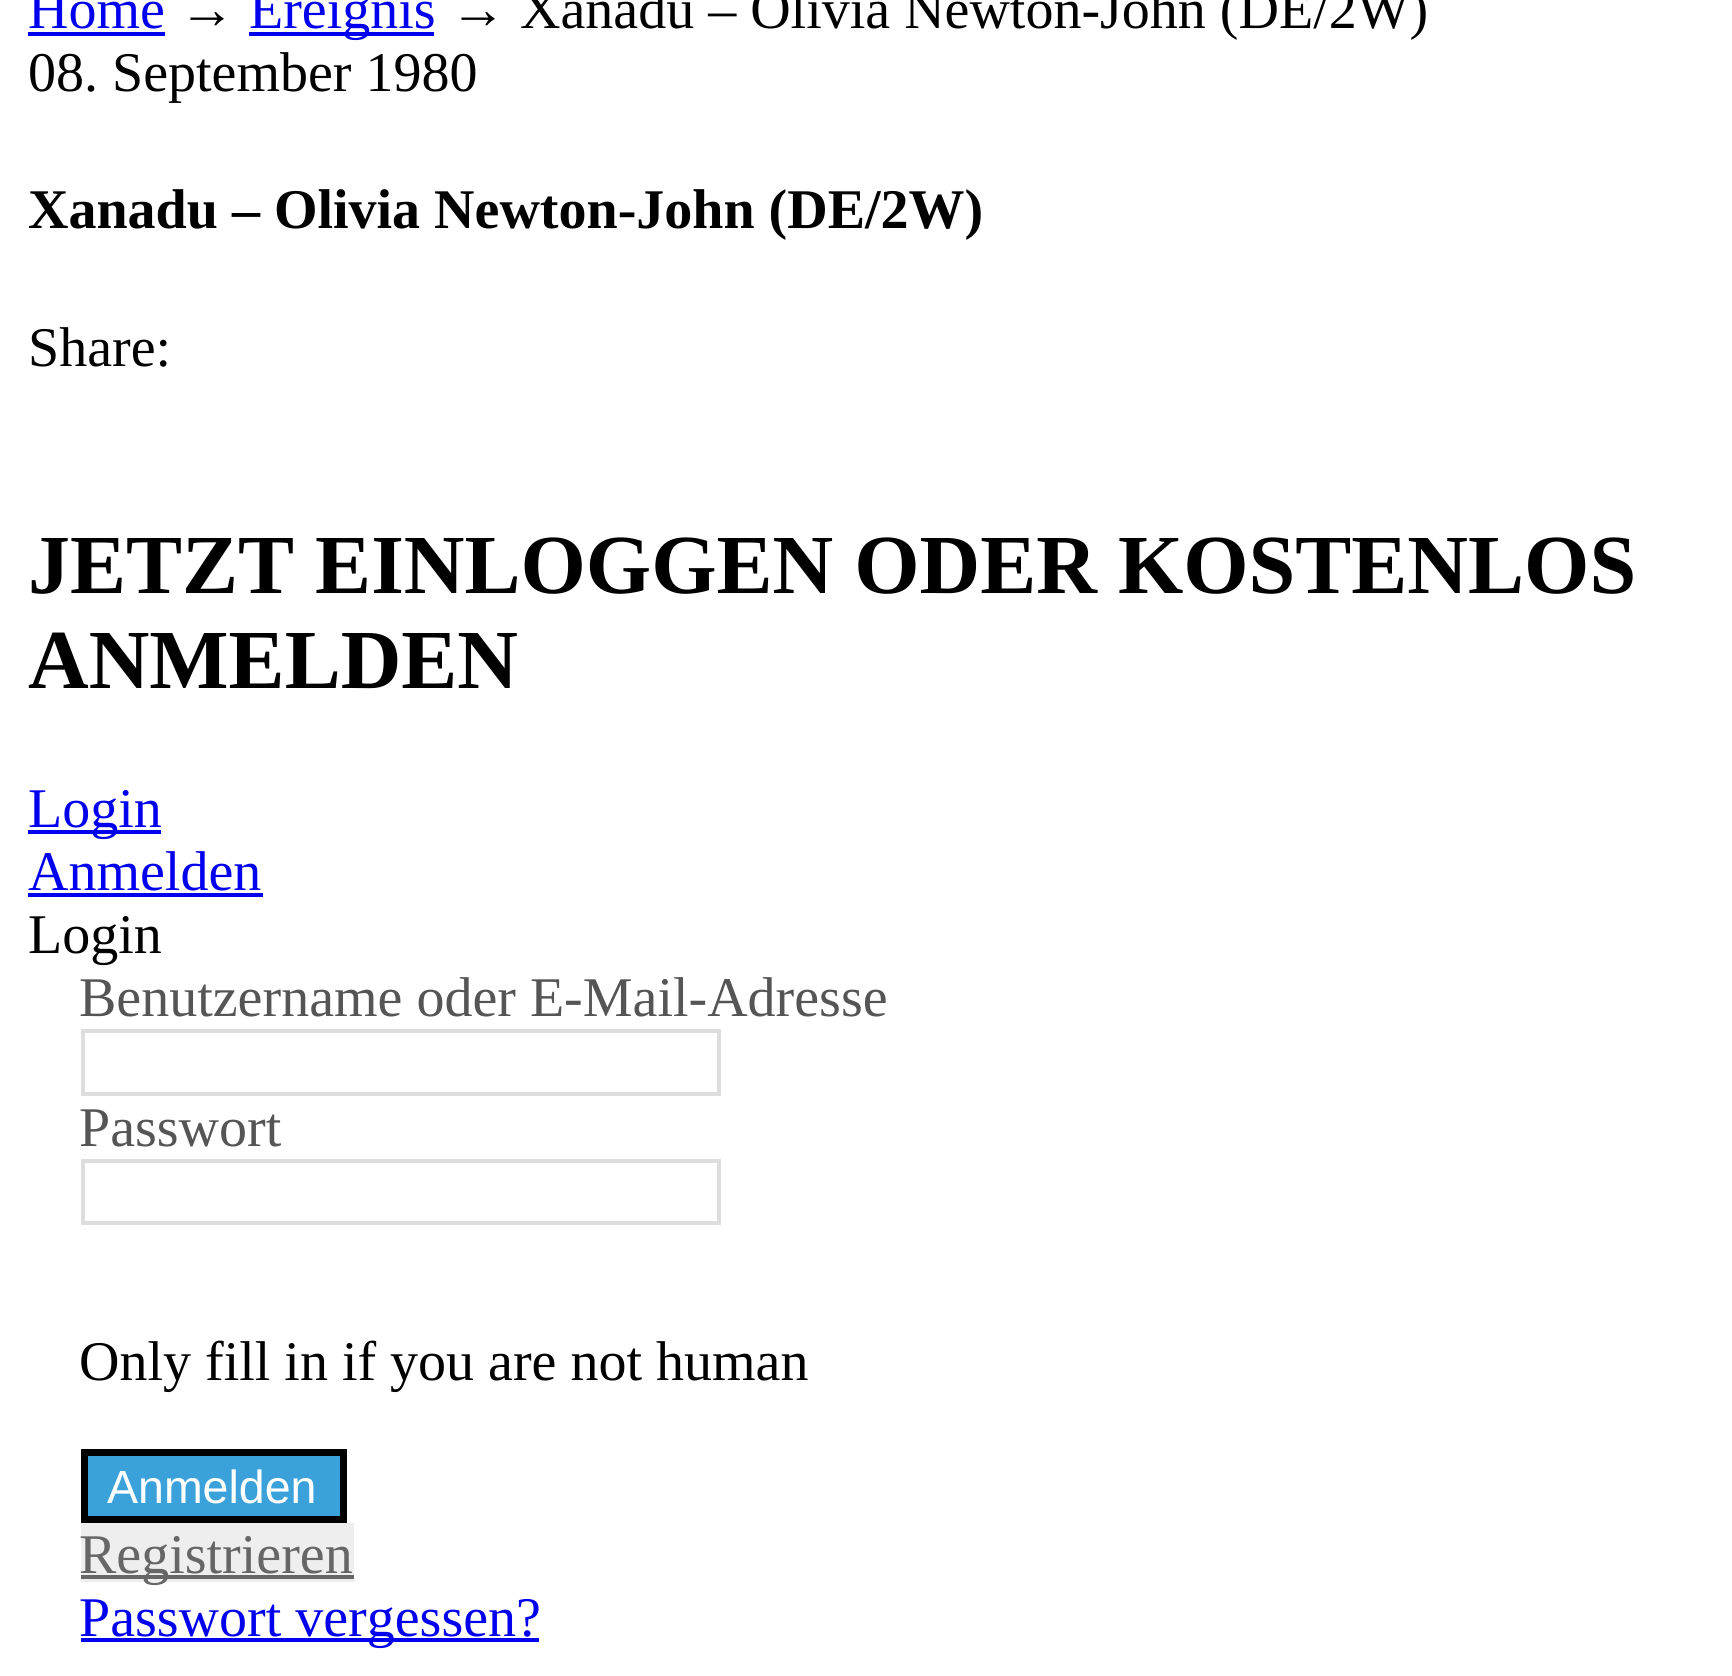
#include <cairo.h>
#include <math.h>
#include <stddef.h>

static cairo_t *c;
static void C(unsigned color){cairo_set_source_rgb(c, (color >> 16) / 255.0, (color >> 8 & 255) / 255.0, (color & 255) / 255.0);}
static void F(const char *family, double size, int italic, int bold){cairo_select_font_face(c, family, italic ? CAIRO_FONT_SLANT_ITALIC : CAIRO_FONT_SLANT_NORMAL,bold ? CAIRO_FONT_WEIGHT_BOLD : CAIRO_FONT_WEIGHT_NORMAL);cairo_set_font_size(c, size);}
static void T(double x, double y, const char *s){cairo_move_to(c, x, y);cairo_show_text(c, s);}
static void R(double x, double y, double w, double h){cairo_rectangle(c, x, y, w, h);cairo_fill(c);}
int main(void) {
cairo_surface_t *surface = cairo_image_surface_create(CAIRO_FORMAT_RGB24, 1732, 1676);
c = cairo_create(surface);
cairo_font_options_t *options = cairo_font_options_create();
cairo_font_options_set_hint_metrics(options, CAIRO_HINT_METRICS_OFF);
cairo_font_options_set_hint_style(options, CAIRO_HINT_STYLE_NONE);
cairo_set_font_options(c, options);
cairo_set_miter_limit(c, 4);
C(0xffffff);
cairo_paint(c);
F("Liberation Serif",56,0,0);
C(0x0000ee);
T(28,28,"Home");
R(28,32,137,4);
C(0x000000);
T(179,28,"→");
C(0x0000ee);
R(249,32,185,4);
T(249,28,"Ereignis");
C(0x000000);
T(450,28,"→ Xanadu – Olivia Newton-John (DE/2W)");
T(28,91,"08. September 1980");
F("Liberation Serif",56,0,1);
T(28,228,"Xanadu – Olivia Newton-John (DE/2W)");
F("Liberation Serif",56,0,0);
T(28,366,"Share:");
F("Liberation Serif",84,0,1);
T(28,593,"JETZT EINLOGGEN ODER KOSTENLOS");
T(28,688,"ANMELDEN");
C(0x0000ee);
R(28,830,133,4);
F("Liberation Serif",56,0,0);
T(28,827,"Login");
T(28,890,"Anmelden");
R(28,893,235,4);
C(0x000000);
T(28,953,"Login");
C(0x555555);
T(79,1016,"Benutzername oder E-Mail-Adresse");
cairo_rectangle(c,83,1031,636,63);
C(0xdddddd);
cairo_set_line_width(c,4);
cairo_stroke(c);
C(0x555555);
T(79,1146,"Passwort");
cairo_rectangle(c,83,1161,636,62);
C(0xdddddd);
cairo_stroke(c);
C(0x000000);
T(79,1380,"Only fill in if you are not human");
C(0x3ba1da);
cairo_rectangle(c,84.5,1452.5,259,67);
cairo_fill_preserve(c);
C(0x000000);
cairo_set_line_width(c,7);
cairo_stroke(c);
F("Liberation Sans",46.5,0,0);
C(0xffffff);
T(107,1503,"Anmelden");
C(0xeeeeee);
R(81,1523,273,59);
C(0x666666);
R(81,1575,273,4);
F("Liberation Serif",56,0,0);
T(79,1573,"Registrieren");
C(0x0000ee);
R(81,1638,458,4);
T(79,1636,"Passwort vergessen?");
cairo_surface_write_to_png(surface, "o.png");
cairo_font_options_destroy(options);
cairo_destroy(c);
cairo_surface_destroy(surface);
return 0;
}
